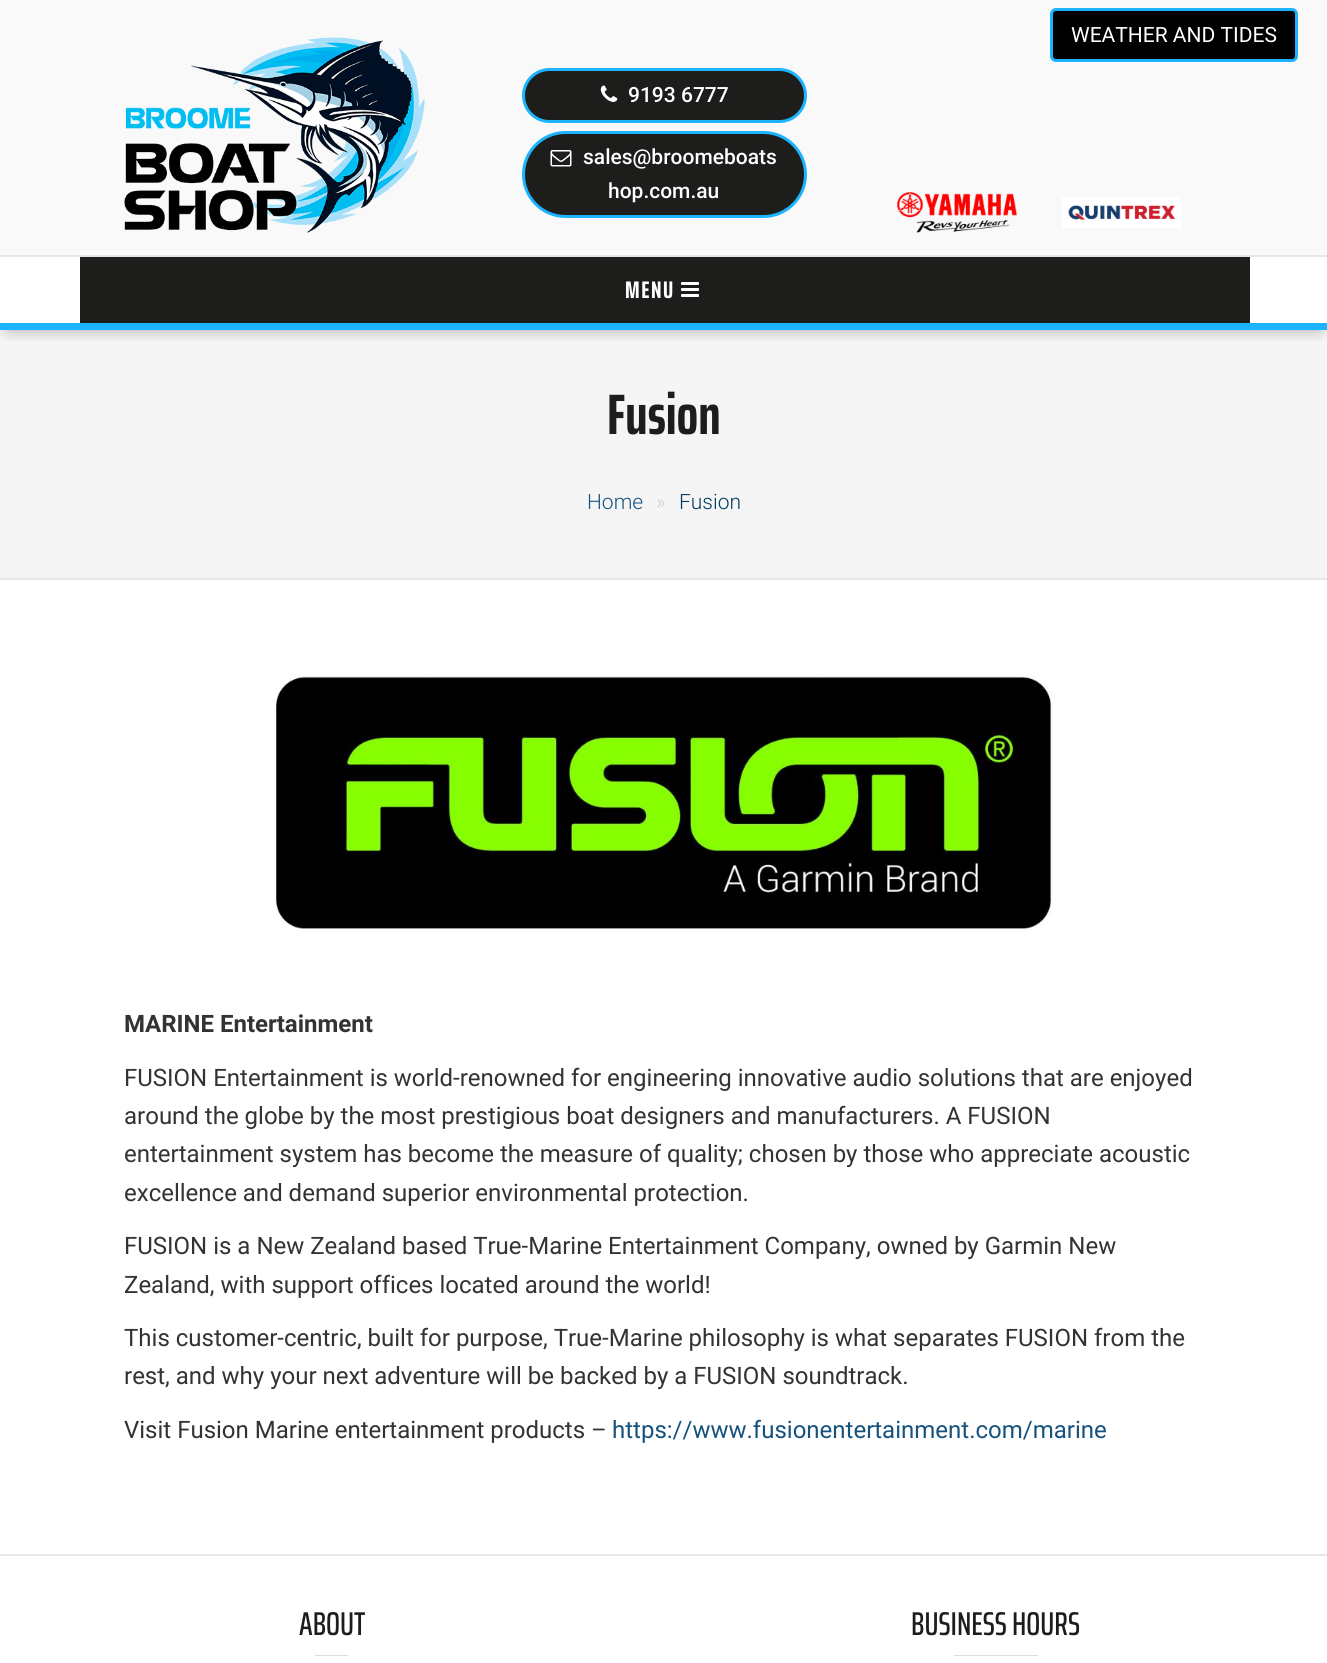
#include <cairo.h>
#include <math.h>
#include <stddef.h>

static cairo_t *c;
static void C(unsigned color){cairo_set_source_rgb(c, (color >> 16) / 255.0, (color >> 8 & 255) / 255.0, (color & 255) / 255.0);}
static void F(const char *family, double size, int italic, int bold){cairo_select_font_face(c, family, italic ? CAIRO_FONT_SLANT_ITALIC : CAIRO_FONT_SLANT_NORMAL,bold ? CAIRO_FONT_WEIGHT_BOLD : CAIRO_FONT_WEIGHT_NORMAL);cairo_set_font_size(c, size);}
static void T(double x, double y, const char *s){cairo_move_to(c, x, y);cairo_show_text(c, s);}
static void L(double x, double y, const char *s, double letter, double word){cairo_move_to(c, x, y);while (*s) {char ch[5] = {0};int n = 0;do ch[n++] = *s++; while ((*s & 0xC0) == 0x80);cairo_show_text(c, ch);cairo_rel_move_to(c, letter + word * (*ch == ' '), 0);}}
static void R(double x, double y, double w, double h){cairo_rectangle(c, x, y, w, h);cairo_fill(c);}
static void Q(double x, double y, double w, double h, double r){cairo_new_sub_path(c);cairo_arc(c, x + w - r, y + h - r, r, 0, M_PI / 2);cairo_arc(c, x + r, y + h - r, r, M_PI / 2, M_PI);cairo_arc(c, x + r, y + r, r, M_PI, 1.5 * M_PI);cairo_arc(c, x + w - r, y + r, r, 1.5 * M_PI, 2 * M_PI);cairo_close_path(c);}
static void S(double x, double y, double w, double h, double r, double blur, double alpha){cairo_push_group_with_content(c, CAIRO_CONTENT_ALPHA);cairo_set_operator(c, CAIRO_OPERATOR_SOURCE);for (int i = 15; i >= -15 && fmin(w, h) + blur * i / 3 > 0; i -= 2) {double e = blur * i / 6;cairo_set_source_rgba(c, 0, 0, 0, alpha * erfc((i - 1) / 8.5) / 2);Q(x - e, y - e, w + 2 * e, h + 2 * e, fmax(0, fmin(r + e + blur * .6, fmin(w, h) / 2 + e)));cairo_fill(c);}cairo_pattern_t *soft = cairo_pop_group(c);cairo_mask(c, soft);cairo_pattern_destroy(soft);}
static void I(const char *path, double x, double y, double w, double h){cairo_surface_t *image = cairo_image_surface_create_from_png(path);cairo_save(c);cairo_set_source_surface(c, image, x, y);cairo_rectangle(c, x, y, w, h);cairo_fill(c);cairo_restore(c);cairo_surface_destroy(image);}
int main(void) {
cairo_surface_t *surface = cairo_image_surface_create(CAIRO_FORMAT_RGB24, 1327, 1663);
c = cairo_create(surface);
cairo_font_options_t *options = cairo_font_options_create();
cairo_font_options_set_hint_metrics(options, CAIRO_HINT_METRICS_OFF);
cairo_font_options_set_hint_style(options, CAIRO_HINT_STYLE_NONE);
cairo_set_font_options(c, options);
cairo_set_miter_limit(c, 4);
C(0xffffff);
cairo_paint(c);
C(0xf9f9f9);
R(0,0,1327,255);
C(0xe7e7e7);
R(0,255,1327,2);
C(0x000000);
Q(1051.5,9.5,245,51,4.5);
cairo_fill_preserve(c);
C(0x1db4ff);
cairo_set_line_width(c,3);
cairo_stroke(c);
F("Roboto",21,0,0);
C(0xffffff);
T(1071,42,"WEATHER AND TIDES");
I("1.png",124,37,301,196);
C(0x1d1d1b);
Q(523.5,69.5,282,52,26);
cairo_fill_preserve(c);
C(0x1db4ff);
cairo_stroke(c);
I("2.png",600,85,18,17);
F("Roboto Medium",21,0,0);
C(0xffffff);
T(628,102,"9193 6777");
C(0x1d1d1b);
Q(523.5,132.5,282,84,42);
cairo_fill_preserve(c);
C(0x1db4ff);
cairo_stroke(c);
I("3.png",550,150,22,17);
C(0xffffff);
T(583,164,"sales@broomeboats");
T(608,198,"hop.com.au");
I("4.png",897,192,120,41);
I("5.png",1062,197,120,31);
C(0xf5f5f5);
R(0,330,1327,248);
cairo_save(c);
cairo_rectangle(c,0,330,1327,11);
cairo_clip(c);
C(0x000000);
S(8,272,1312,58,0,7.5,.3);
cairo_restore(c);
C(0x1db4ff);
R(0,323,1327,7);
C(0x1d1d1b);
R(80,257,1170,66);
F("Saira ExtraCondensed",24,0,1);
C(0xffffff);
L(625,298,"MENU",1.5,0);
I("6.png",681,282,18,15);
C(0xe7e7e7);
R(0,578,1327,2);
F("Saira ExtraCondensed",57,0,1);
C(0x1d1d1b);
T(607,434,"Fusion");
F("Roboto Light",21,0,0);
C(0x15527e);
T(587,509,"Home");
C(0xcccccc);
T(656,509,"»");
C(0x003b61);
T(679,509,"Fusion");
I("7.png",276,675,777,255);
F("Roboto",24,0,1);
C(0x333333);
T(124,1032,"MARINE Entertainment");
F("Roboto",24,0,0);
T(124,1086,"FUSION Entertainment is world-renowned for engineering innovative audio solutions that are enjoyed");
T(124,1124,"around the globe by the most prestigious boat designers and manufacturers. A FUSION");
T(124,1162,"entertainment system has become the measure of quality; chosen by those who appreciate acoustic");
T(124,1201,"excellence and demand superior environmental protection.");
T(124,1254,"FUSION is a New Zealand based True-Marine Entertainment Company, owned by Garmin New");
T(124,1293,"Zealand, with support offices located around the world!");
T(124,1346,"This customer-centric, built for purpose, True-Marine philosophy is what separates FUSION from the");
T(124,1384,"rest, and why your next adventure will be backed by a FUSION soundtrack.");
T(124,1438,"Visit Fusion Marine entertainment products –");
C(0x15527e);
T(612,1438,"https://www.fusionentertainment.com/marine");
C(0xe7e7e7);
R(0,1554,1327,2);
F("Saira ExtraCondensed Medium",33,0,0);
C(0x1d1d1b);
T(299,1635,"ABOUT");
C(0xdddddd);
R(315,1655,33,1);
C(0x1d1d1b);
T(911,1635,"BUSINESS HOURS");
C(0xdddddd);
R(954,1655,84,1);
cairo_surface_write_to_png(surface, "o.png");
cairo_font_options_destroy(options);
cairo_destroy(c);
cairo_surface_destroy(surface);
return 0;
}
